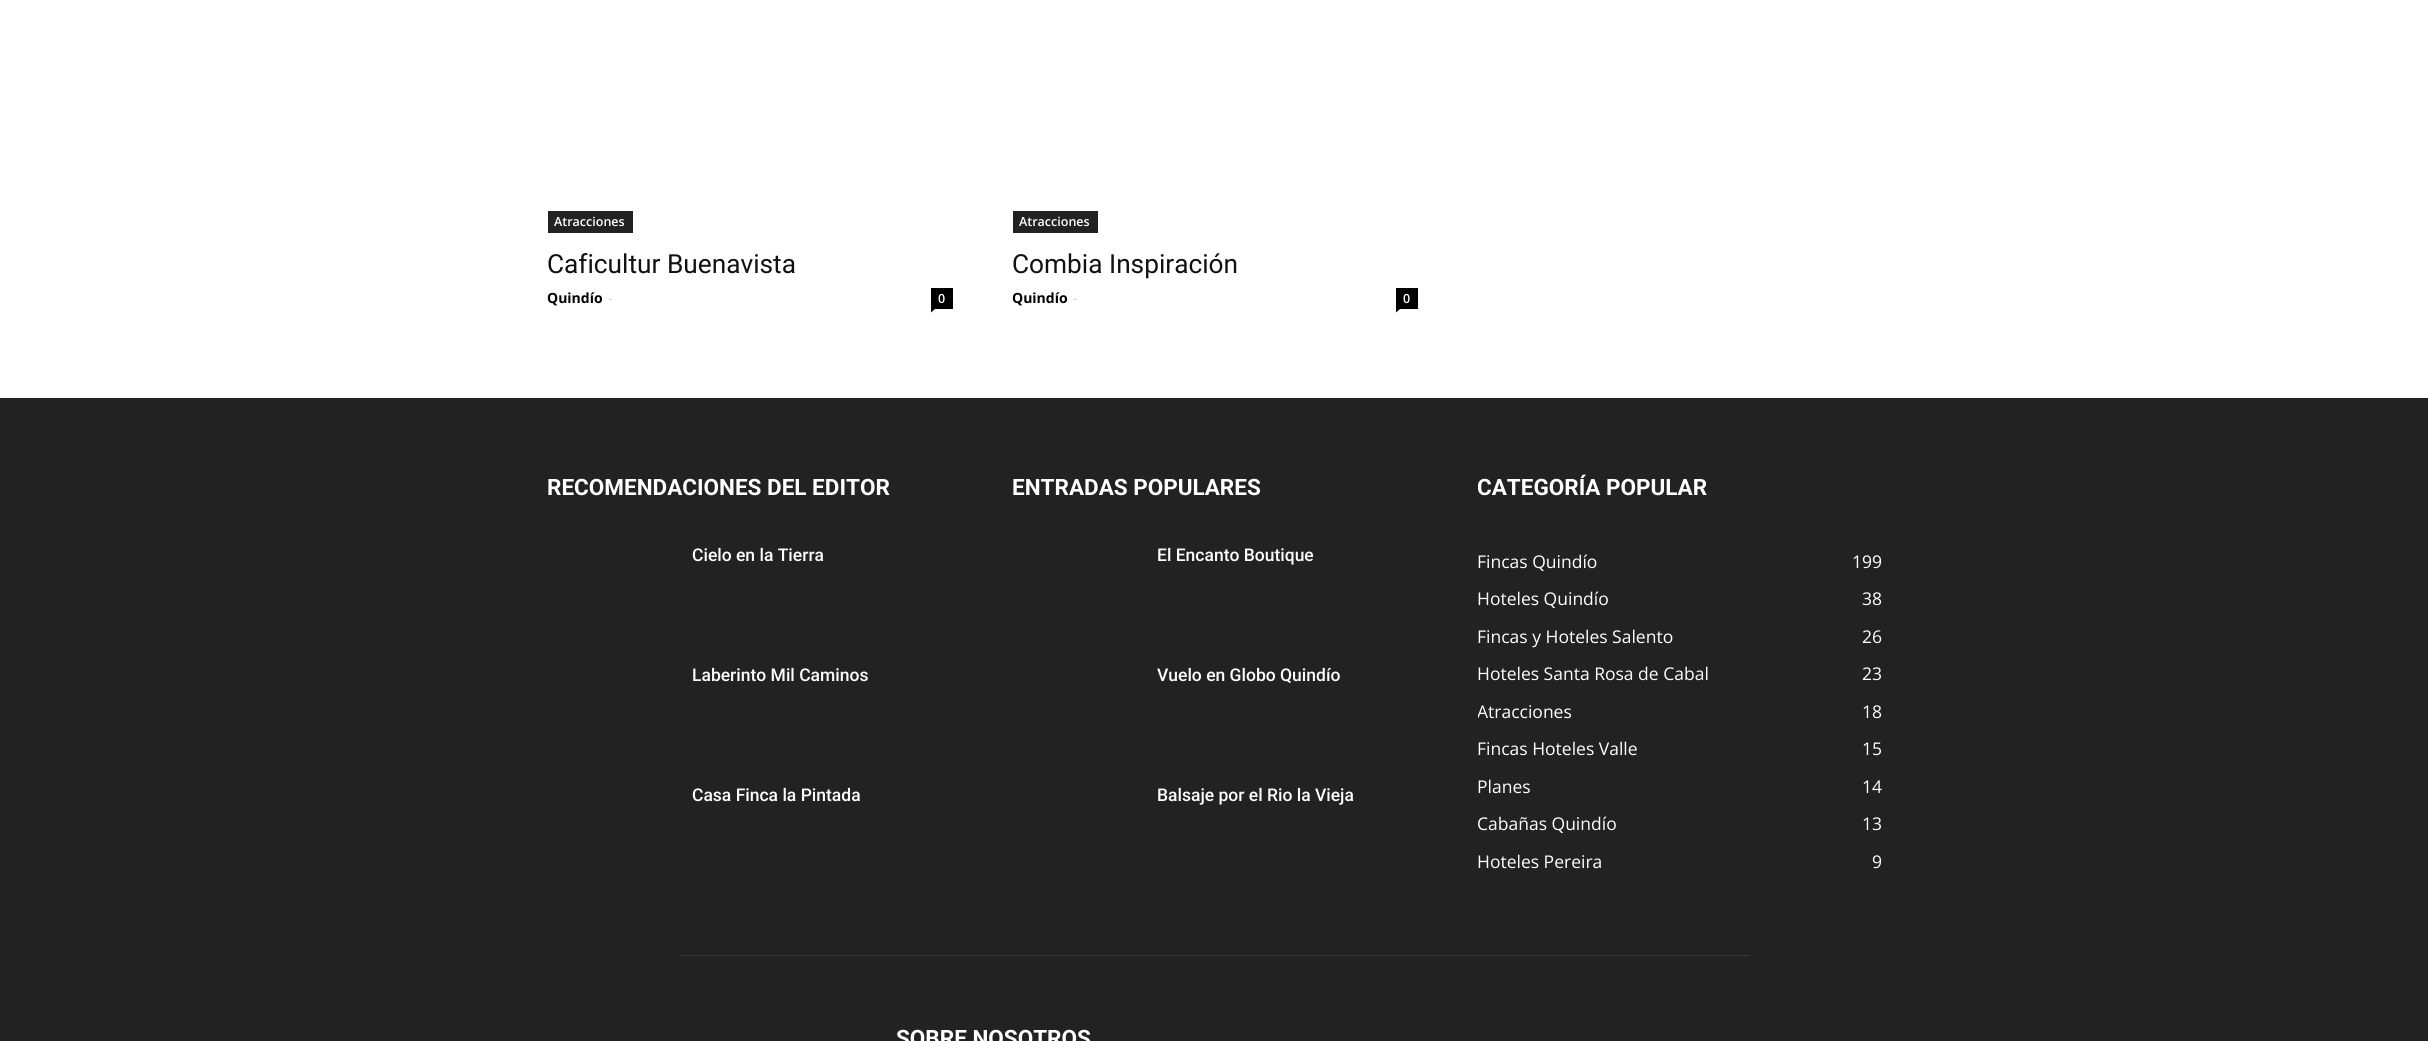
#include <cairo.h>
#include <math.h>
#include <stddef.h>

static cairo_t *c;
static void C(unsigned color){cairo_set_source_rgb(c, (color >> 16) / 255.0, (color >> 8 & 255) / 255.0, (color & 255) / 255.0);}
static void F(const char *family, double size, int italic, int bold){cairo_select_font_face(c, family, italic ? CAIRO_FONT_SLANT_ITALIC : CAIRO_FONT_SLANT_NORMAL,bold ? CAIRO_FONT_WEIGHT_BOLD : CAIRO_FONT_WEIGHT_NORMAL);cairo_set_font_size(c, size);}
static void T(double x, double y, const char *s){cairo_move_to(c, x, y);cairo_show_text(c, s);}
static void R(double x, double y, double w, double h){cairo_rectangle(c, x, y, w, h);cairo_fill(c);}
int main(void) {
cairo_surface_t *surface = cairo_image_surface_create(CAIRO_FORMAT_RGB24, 2428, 1041);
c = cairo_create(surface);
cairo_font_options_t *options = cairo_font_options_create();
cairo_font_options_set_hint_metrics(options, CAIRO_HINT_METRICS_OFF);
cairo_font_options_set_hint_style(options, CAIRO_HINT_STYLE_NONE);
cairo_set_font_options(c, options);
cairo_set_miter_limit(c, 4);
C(0xffffff);
cairo_paint(c);
C(0x222222);
R(548,211,85,22);
F("Open Sans SemiBold",12.5,0,0);
C(0xffffff);
T(554,226,"Atracciones");
F("Roboto",26.25,0,0);
C(0x111111);
T(547,273,"Caficultur Buenavista");
F("Open Sans",14,0,1);
C(0x000000);
T(547,303,"Quindío");
F("Open Sans",14,0,0);
C(0xcccccc);
T(608,303,"-");
C(0x000000);
R(931,288,22,21);
F("Open Sans SemiBold",12.5,0,0);
C(0xffffff);
T(938,303,"0");
C(0x000000);
cairo_new_path(c);
cairo_move_to(c,931,309);
cairo_line_to(c,935,309);
cairo_line_to(c,931,312.5);
cairo_close_path(c);
cairo_fill(c);
C(0x222222);
R(1013,211,85,22);
C(0xffffff);
T(1019,226,"Atracciones");
F("Roboto",26.25,0,0);
C(0x111111);
T(1012,273,"Combia Inspiración");
F("Open Sans",14,0,1);
C(0x000000);
T(1012,303,"Quindío");
F("Open Sans",14,0,0);
C(0xcccccc);
T(1073,303,"-");
C(0x000000);
R(1396,288,22,21);
F("Open Sans SemiBold",12.5,0,0);
C(0xffffff);
T(1403,303,"0");
C(0x000000);
cairo_new_path(c);
cairo_move_to(c,1396,309);
cairo_line_to(c,1400,309);
cairo_line_to(c,1396,312.5);
cairo_close_path(c);
cairo_fill(c);
C(0x222222);
R(0,398,2428,643);
F("Roboto",22.5,0,1);
C(0xffffff);
T(547,495,"RECOMENDACIONES DEL EDITOR");
F("Roboto Medium",17.5,0,0);
T(692,561,"Cielo en la Tierra");
T(692,681,"Laberinto Mil Caminos");
T(692,801,"Casa Finca la Pintada");
F("Roboto",22.5,0,1);
T(1012,495,"ENTRADAS POPULARES");
F("Roboto Medium",17.5,0,0);
T(1157,561,"El Encanto Boutique");
T(1157,681,"Vuelo en Globo Quindío");
T(1157,801,"Balsaje por el Rio la Vieja");
cairo_save(c);
cairo_rectangle(c,1478,466,405,414);
cairo_clip(c);
F("Roboto",22.5,0,1);
T(1477,495,"CATEGORÍA POPULAR");
cairo_restore(c);
F("Open Sans",17.5,0,0);
T(1477,568,"Fincas Quindío");
T(1852,568,"199");
T(1477,605,"Hoteles Quindío");
T(1862,605,"38");
T(1477,643,"Fincas y Hoteles Salento");
T(1862,643,"26");
T(1477,680,"Hoteles Santa Rosa de Cabal");
T(1862,680,"23");
cairo_save(c);
cairo_rectangle(c,1478,466,405,414);
cairo_clip(c);
T(1477,718,"Atracciones");
cairo_restore(c);
T(1862,718,"18");
T(1477,755,"Fincas Hoteles Valle");
T(1862,755,"15");
T(1477,793,"Planes");
T(1862,793,"14");
T(1477,830,"Cabañas Quindío");
T(1862,830,"13");
T(1477,868,"Hoteles Pereira");
T(1872,868,"9");
C(0x383838);
R(680,955,1069,1);
F("Roboto",22.5,0,1);
C(0xffffff);
T(896,1046,"SOBRE NOSOTROS");
cairo_surface_write_to_png(surface, "o.png");
cairo_font_options_destroy(options);
cairo_destroy(c);
cairo_surface_destroy(surface);
return 0;
}
